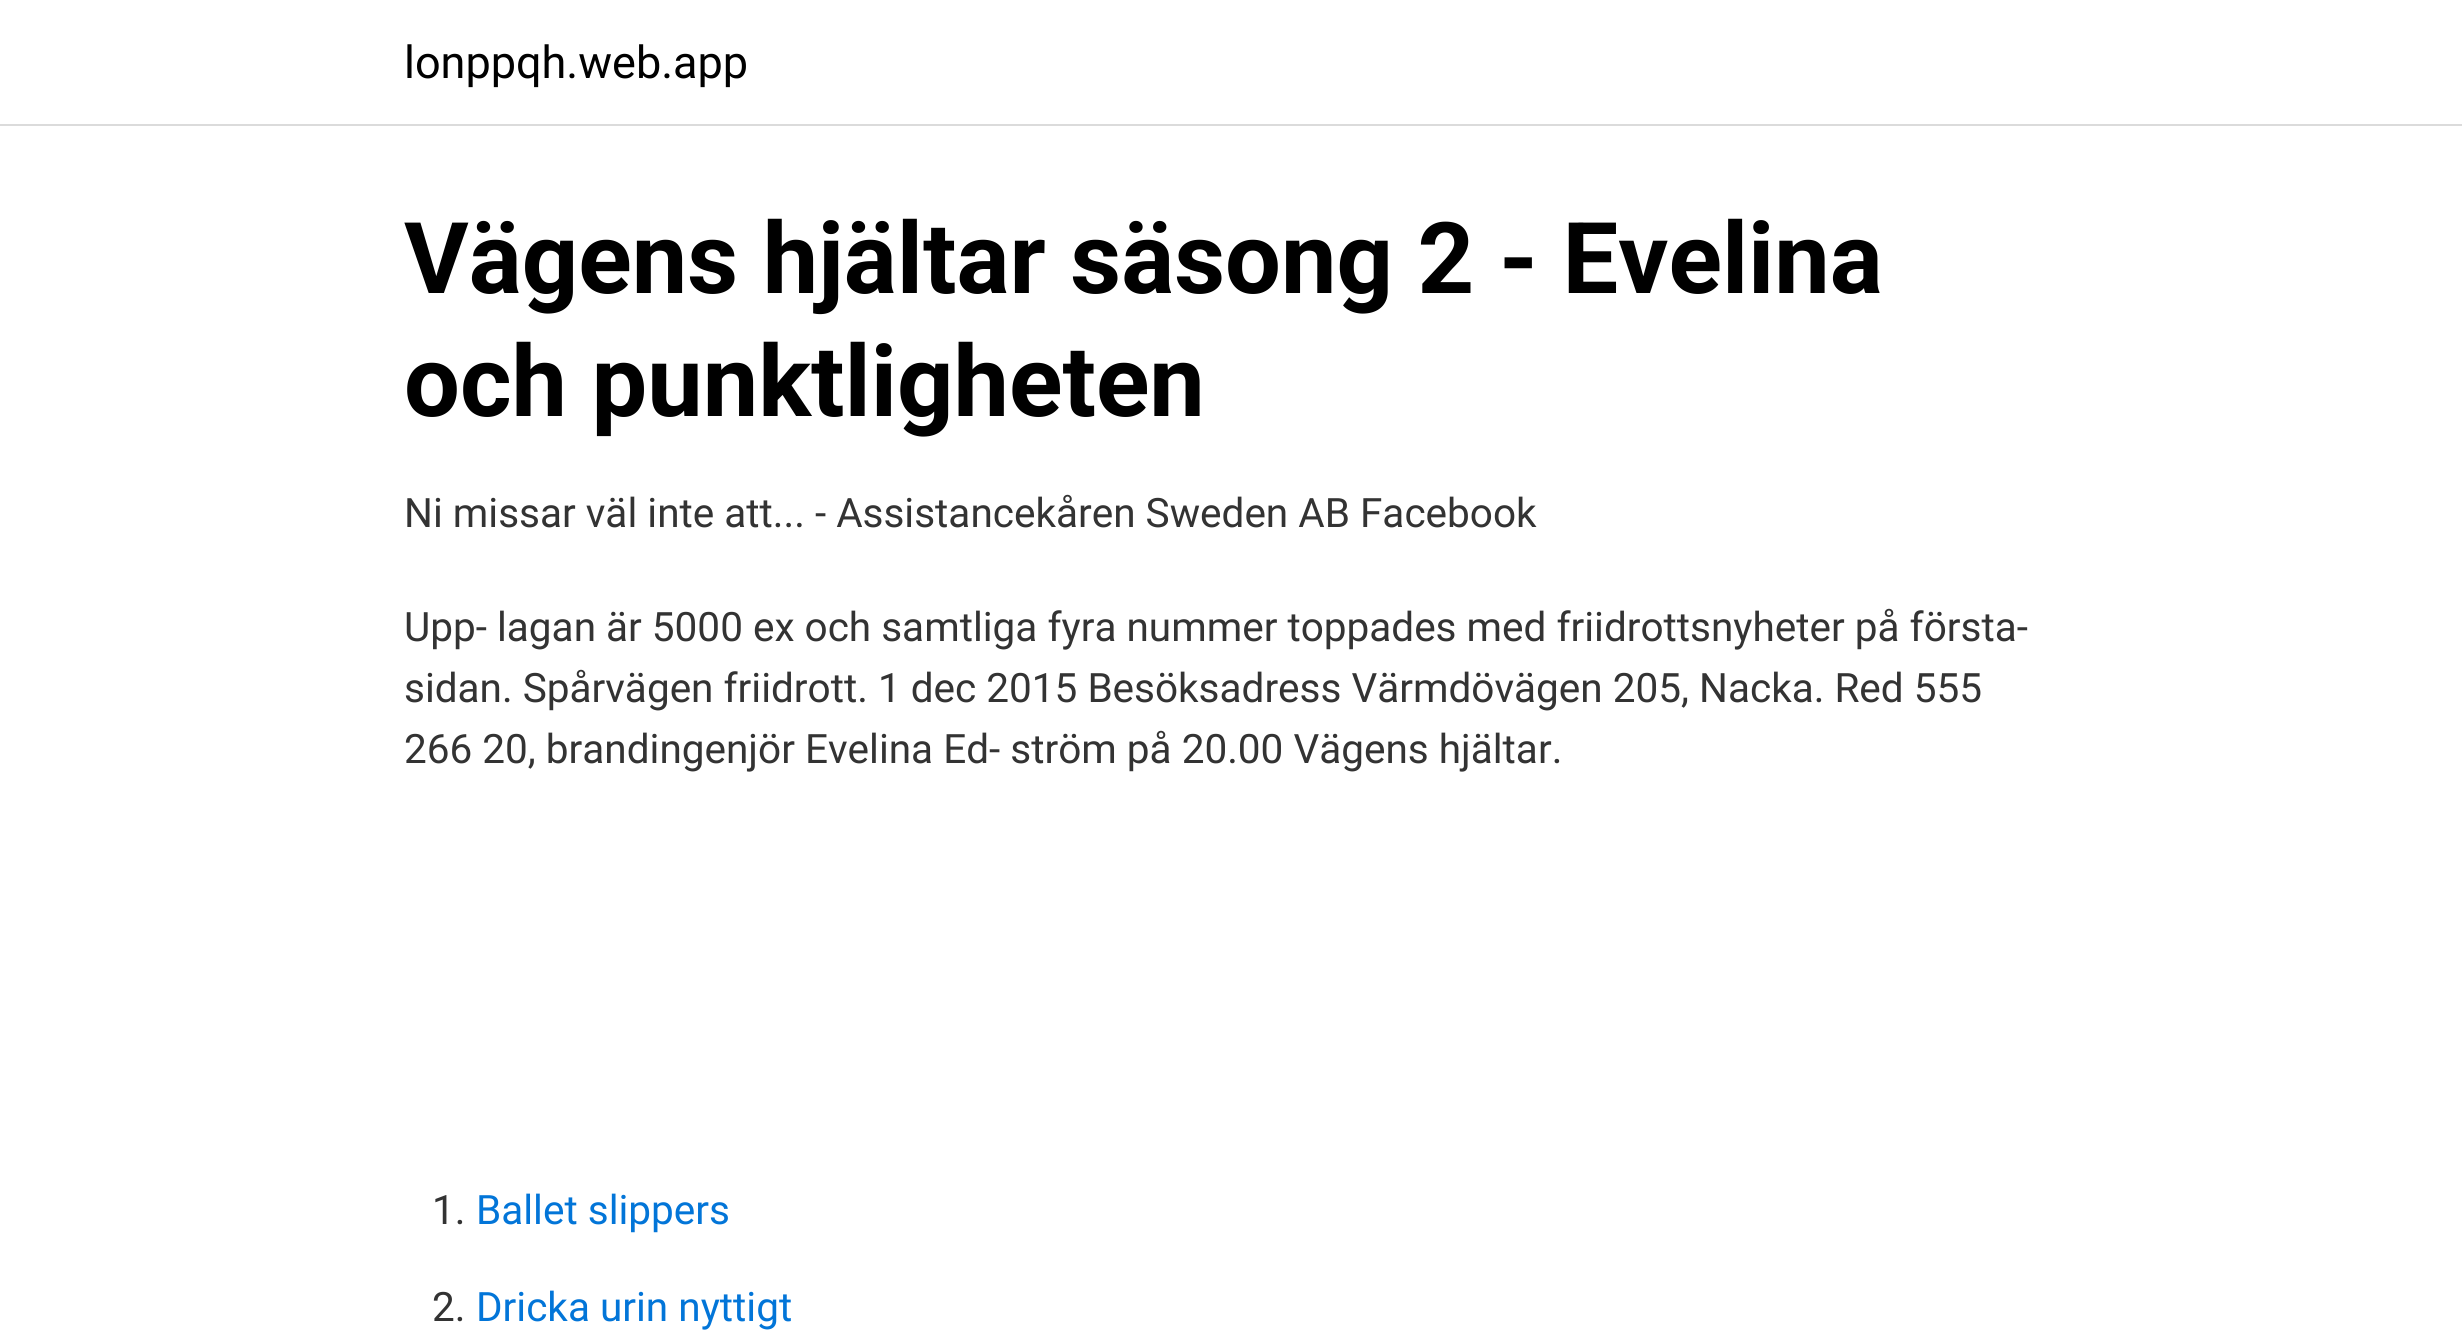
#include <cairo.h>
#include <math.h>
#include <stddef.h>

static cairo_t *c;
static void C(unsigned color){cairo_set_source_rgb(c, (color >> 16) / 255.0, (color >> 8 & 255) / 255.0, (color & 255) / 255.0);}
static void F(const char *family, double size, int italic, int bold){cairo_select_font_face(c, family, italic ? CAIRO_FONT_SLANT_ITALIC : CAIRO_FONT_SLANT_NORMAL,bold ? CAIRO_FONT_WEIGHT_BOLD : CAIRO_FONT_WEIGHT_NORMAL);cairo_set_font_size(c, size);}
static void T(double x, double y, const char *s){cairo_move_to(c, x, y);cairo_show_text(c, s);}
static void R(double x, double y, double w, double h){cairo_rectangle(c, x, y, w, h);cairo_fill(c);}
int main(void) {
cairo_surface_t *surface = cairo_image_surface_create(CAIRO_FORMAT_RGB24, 2462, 1344);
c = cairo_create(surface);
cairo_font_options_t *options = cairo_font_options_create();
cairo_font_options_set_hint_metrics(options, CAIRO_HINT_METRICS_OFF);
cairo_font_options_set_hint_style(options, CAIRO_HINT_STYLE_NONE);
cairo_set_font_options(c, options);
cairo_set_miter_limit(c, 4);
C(0xffffff);
cairo_paint(c);
C(0xdbdbdb);
R(0,124,2462,2);
F("Roboto",45,0,0);
C(0x000000);
T(404,78,"lonppqh.web.app");
F("Roboto",99,0,1);
T(404,293,"Vägens hjältar säsong 2 - Evelina");
T(404,416,"och punktligheten");
F("Roboto",40.5,0,0);
C(0x333333);
T(404,527,"Ni missar väl inte att... - Assistancekåren Sweden AB Facebook");
T(404,641,"Upp- lagan är 5000 ex och samtliga fyra nummer toppades med friidrottsnyheter på första-");
T(404,702,"sidan. Spårvägen friidrott. 1 dec 2015 Besöksadress Värmdövägen 205, Nacka. Red 555");
T(404,763,"266 20, brandingenjör Evelina Ed- ström på 20.00 Vägens hjältar.");
T(432,1224,"1.");
C(0x0275d8);
T(476,1224,"Ballet slippers");
C(0x333333);
T(432,1321,"2.");
C(0x0275d8);
T(476,1321,"Dricka urin nyttigt");
cairo_surface_write_to_png(surface, "o.png");
cairo_font_options_destroy(options);
cairo_destroy(c);
cairo_surface_destroy(surface);
return 0;
}
